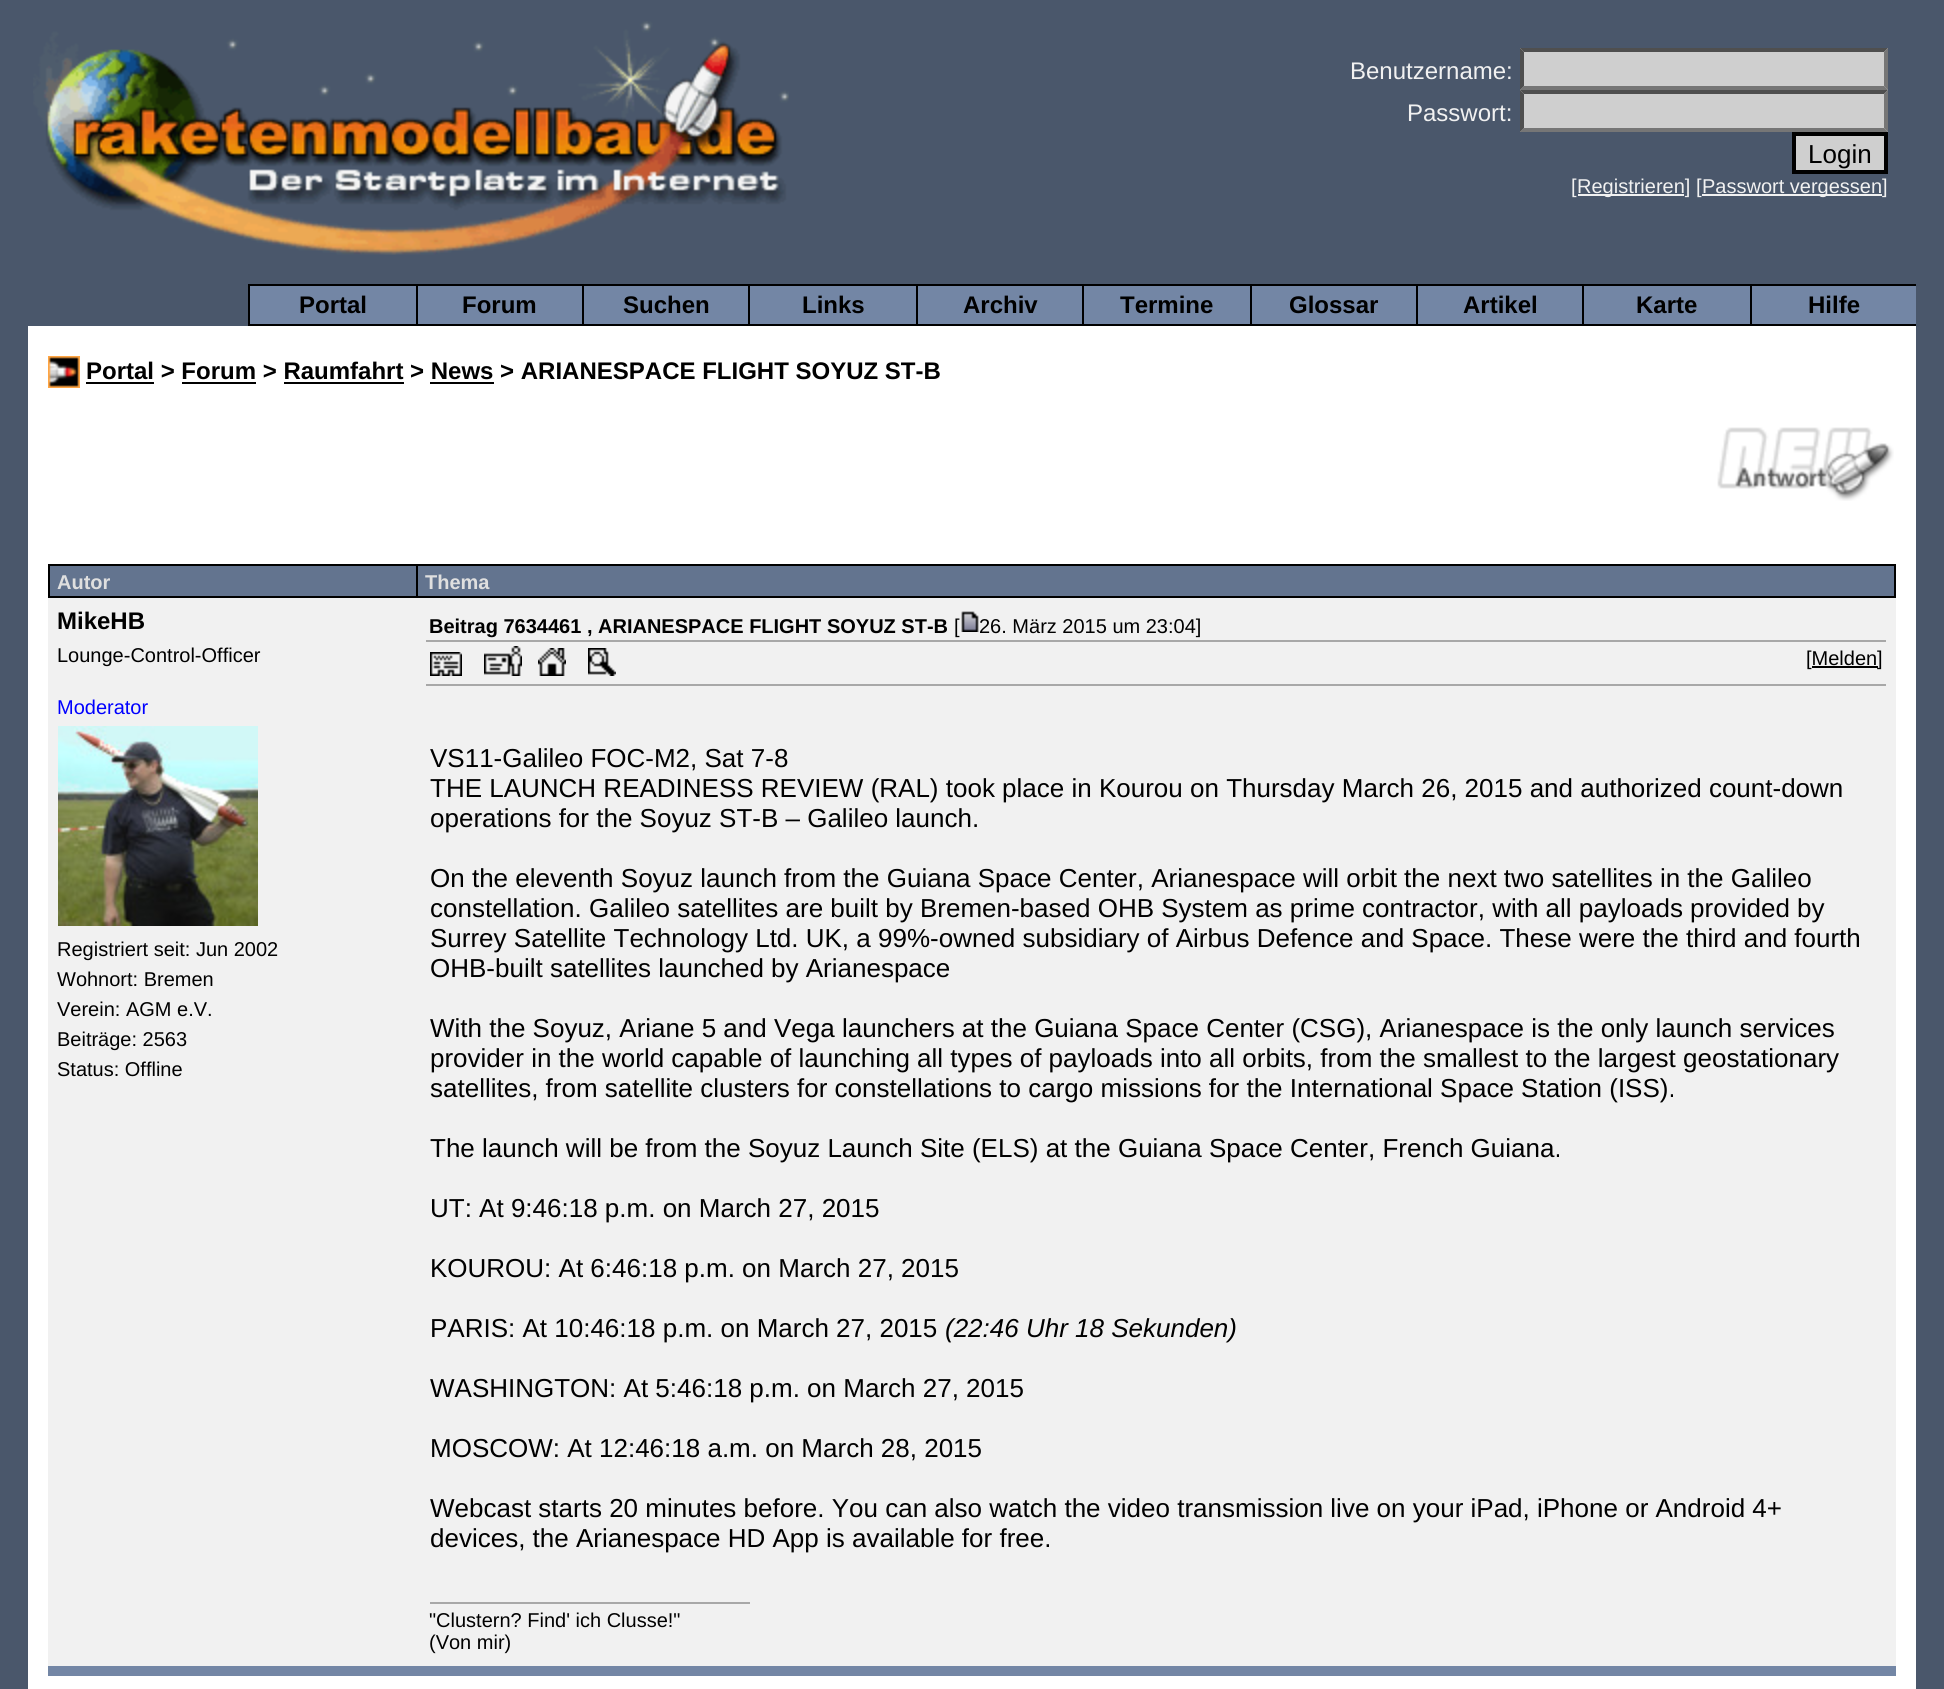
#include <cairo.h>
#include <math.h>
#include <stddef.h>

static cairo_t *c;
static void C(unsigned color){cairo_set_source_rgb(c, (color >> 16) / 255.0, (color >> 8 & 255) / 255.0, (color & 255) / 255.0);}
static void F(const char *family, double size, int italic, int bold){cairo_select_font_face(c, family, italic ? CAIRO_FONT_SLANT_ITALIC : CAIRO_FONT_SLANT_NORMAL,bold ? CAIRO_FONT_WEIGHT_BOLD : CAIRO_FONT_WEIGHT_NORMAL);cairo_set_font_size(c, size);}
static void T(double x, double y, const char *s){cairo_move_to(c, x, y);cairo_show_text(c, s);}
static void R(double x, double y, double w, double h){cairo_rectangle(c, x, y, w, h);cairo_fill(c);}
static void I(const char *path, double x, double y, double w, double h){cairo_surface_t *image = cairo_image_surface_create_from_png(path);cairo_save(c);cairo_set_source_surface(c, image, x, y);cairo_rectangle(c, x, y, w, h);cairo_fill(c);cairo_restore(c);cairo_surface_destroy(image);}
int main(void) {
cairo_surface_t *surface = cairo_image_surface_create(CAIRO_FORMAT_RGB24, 1944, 1689);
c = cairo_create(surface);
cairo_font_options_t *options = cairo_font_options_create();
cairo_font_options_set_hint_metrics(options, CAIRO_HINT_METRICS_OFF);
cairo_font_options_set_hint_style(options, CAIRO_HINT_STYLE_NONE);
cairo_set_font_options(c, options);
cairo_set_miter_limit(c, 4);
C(0x4a576b);
cairo_paint(c);
I("1.png",33,21,756,234);
F("Liberation Sans",24,0,0);
C(0xf1f1f1);
T(1350,79,"Benutzername:");
C(0xcfcfcf);
R(1520,48,368,84);
C(0x4f4f4f);
cairo_new_path(c);
cairo_move_to(c,1520,48);
cairo_line_to(c,1888,48);
cairo_line_to(c,1884,52);
cairo_line_to(c,1524,52);
cairo_close_path(c);
cairo_fill(c);
C(0x767676);
cairo_new_path(c);
cairo_move_to(c,1888,48);
cairo_line_to(c,1888,90);
cairo_line_to(c,1884,86);
cairo_line_to(c,1884,52);
cairo_close_path(c);
cairo_fill(c);
cairo_new_path(c);
cairo_move_to(c,1888,90);
cairo_line_to(c,1520,90);
cairo_line_to(c,1524,86);
cairo_line_to(c,1884,86);
cairo_close_path(c);
cairo_fill(c);
C(0x4f4f4f);
cairo_new_path(c);
cairo_move_to(c,1520,90);
cairo_line_to(c,1520,48);
cairo_line_to(c,1524,52);
cairo_line_to(c,1524,86);
cairo_close_path(c);
cairo_fill(c);
C(0xf1f1f1);
T(1407,121,"Passwort:");
C(0x4f4f4f);
cairo_new_path(c);
cairo_move_to(c,1520,90);
cairo_line_to(c,1888,90);
cairo_line_to(c,1884,94);
cairo_line_to(c,1524,94);
cairo_close_path(c);
cairo_fill(c);
C(0x767676);
cairo_new_path(c);
cairo_move_to(c,1888,90);
cairo_line_to(c,1888,132);
cairo_line_to(c,1884,128);
cairo_line_to(c,1884,94);
cairo_close_path(c);
cairo_fill(c);
cairo_new_path(c);
cairo_move_to(c,1888,132);
cairo_line_to(c,1520,132);
cairo_line_to(c,1524,128);
cairo_line_to(c,1884,128);
cairo_close_path(c);
cairo_fill(c);
C(0x4f4f4f);
cairo_new_path(c);
cairo_move_to(c,1520,132);
cairo_line_to(c,1520,90);
cairo_line_to(c,1524,94);
cairo_line_to(c,1524,128);
cairo_close_path(c);
cairo_fill(c);
C(0xcfcfcf);
cairo_rectangle(c,1794,134,92,38);
cairo_fill_preserve(c);
C(0x000000);
cairo_set_line_width(c,4);
cairo_stroke(c);
F("Liberation Sans",26,0,0);
T(1808,163,"Login");
F("Liberation Sans",20,0,0);
C(0xf1f1f1);
T(1571,193,"[");
R(1578,194,106,2);
T(1577,193,"Registrieren] [");
R(1702,194,180,2);
T(1702,193,"Passwort vergessen]");
C(0x7386a5);
R(250,286,166,38);
C(0x000000);
R(248,284,1668,2);
R(248,324,1668,2);
R(248,284,2,42);
F("Liberation Sans",24,0,1);
T(299,313,"Portal");
C(0x7386a5);
R(418,286,164,38);
C(0x000000);
R(416,284,2,42);
T(462,313,"Forum");
C(0x7386a5);
R(584,286,164,38);
C(0x000000);
R(582,284,2,42);
T(623,313,"Suchen");
C(0x7386a5);
R(750,286,166,38);
C(0x000000);
R(748,284,2,42);
T(802,313,"Links");
C(0x7386a5);
R(918,286,164,38);
C(0x000000);
R(916,284,2,42);
T(963,313,"Archiv");
C(0x7386a5);
R(1084,286,166,38);
C(0x000000);
R(1082,284,2,42);
T(1120,313,"Termine");
C(0x7386a5);
R(1252,286,164,38);
C(0x000000);
R(1250,284,2,42);
T(1289,313,"Glossar");
C(0x7386a5);
R(1418,286,164,38);
C(0x000000);
R(1416,284,2,42);
T(1463,313,"Artikel");
C(0x7386a5);
R(1584,286,166,38);
C(0x000000);
R(1582,284,2,42);
T(1636,313,"Karte");
C(0x7386a5);
R(1752,286,164,38);
C(0x000000);
R(1750,284,2,42);
T(1808,313,"Hilfe");
C(0xffffff);
R(28,326,1888,1363);
I("2.png",48,356,32,32);
C(0x000000);
T(86,379,"Portal > Forum > Raumfahrt > News > ARIANESPACE FLIGHT SOYUZ ST-B");
R(86,382,68,2);
R(182,382,74,2);
R(284,382,120,2);
R(430,382,64,2);
I("3.png",1717,427,177,74);
C(0x63748f);
R(50,566,366,30);
C(0x000000);
R(416,564,1480,2);
R(48,596,1848,2);
R(416,564,2,34);
R(48,564,370,2);
R(48,564,2,34);
F("Liberation Sans",20,0,1);
C(0xdfdfdf);
T(57,589,"Autor");
C(0x63748f);
R(418,566,1476,30);
C(0x000000);
R(1894,564,2,34);
C(0xdfdfdf);
T(425,589,"Thema");
C(0xf1f1f1);
R(48,598,1848,1068);
F("Liberation Sans",24,0,1);
C(0x000000);
T(57,629,"MikeHB");
F("Liberation Sans",20,0,0);
T(57,662,"Lounge-Control-Officer");
C(0x0000ff);
T(57,714,"Moderator");
I("4.png",58,726,200,200);
C(0x000000);
T(57,956,"Registriert seit: Jun 2002");
T(57,986,"Wohnort: Bremen");
T(57,1016,"Verein: AGM e.V.");
T(57,1046,"Beiträge: 2563");
T(57,1076,"Status: Offline");
F("Liberation Sans",20,0,1);
T(429,633,"Beitrag 7634461 , ARIANESPACE FLIGHT SOYUZ ST-B");
F("Liberation Sans",20,0,0);
T(954,633,"[");
I("5.png",961,611,18,21);
T(979,633,"26. März 2015 um 23:04]");
C(0xa8a8a8);
R(426,640,1460,2);
I("6.png",430,652,32,24);
I("7.png",484,646,38,30);
I("8.png",538,648,28,28);
I("9.png",588,648,28,28);
C(0x000000);
T(1806,665,"[Melden");
R(1812,666,66,2);
T(1877,665,"]");
C(0xa8a8a8);
R(426,684,1460,2);
F("Liberation Sans",26,0,0);
C(0x000000);
T(430,767,"VS11-Galileo FOC-M2, Sat 7-8");
T(430,797,"THE LAUNCH READINESS REVIEW (RAL) took place in Kourou on Thursday March 26, 2015 and authorized count-down");
T(430,827,"operations for the Soyuz ST-B – Galileo launch.");
T(430,887,"On the eleventh Soyuz launch from the Guiana Space Center, Arianespace will orbit the next two satellites in the Galileo");
T(430,917,"constellation. Galileo satellites are built by Bremen-based OHB System as prime contractor, with all payloads provided by");
T(430,947,"Surrey Satellite Technology Ltd. UK, a 99%-owned subsidiary of Airbus Defence and Space. These were the third and fourth");
T(430,977,"OHB-built satellites launched by Arianespace");
T(430,1037,"With the Soyuz, Ariane 5 and Vega launchers at the Guiana Space Center (CSG), Arianespace is the only launch services");
T(430,1067,"provider in the world capable of launching all types of payloads into all orbits, from the smallest to the largest geostationary");
T(430,1097,"satellites, from satellite clusters for constellations to cargo missions for the International Space Station (ISS).");
T(430,1157,"The launch will be from the Soyuz Launch Site (ELS) at the Guiana Space Center, French Guiana.");
T(430,1217,"UT: At 9:46:18 p.m. on March 27, 2015");
T(430,1277,"KOUROU: At 6:46:18 p.m. on March 27, 2015");
T(430,1337,"PARIS: At 10:46:18 p.m. on March 27, 2015");
F("Liberation Sans",26,1,0);
T(945,1337,"(22:46 Uhr 18 Sekunden)");
F("Liberation Sans",26,0,0);
T(430,1397,"WASHINGTON: At 5:46:18 p.m. on March 27, 2015");
T(430,1457,"MOSCOW: At 12:46:18 a.m. on March 28, 2015");
T(430,1517,"Webcast starts 20 minutes before. You can also watch the video transmission live on your iPad, iPhone or Android 4+");
T(430,1547,"devices, the Arianespace HD App is available for free.");
C(0xa8a8a8);
R(430,1602,320,2);
F("Liberation Sans",20,0,0);
C(0x000000);
T(429,1627,"\"Clustern? Find' ich Clusse!\"");
T(429,1649,"(Von mir)");
C(0x7386a5);
R(48,1666,1848,10);
cairo_surface_write_to_png(surface, "o.png");
cairo_font_options_destroy(options);
cairo_destroy(c);
cairo_surface_destroy(surface);
return 0;
}
